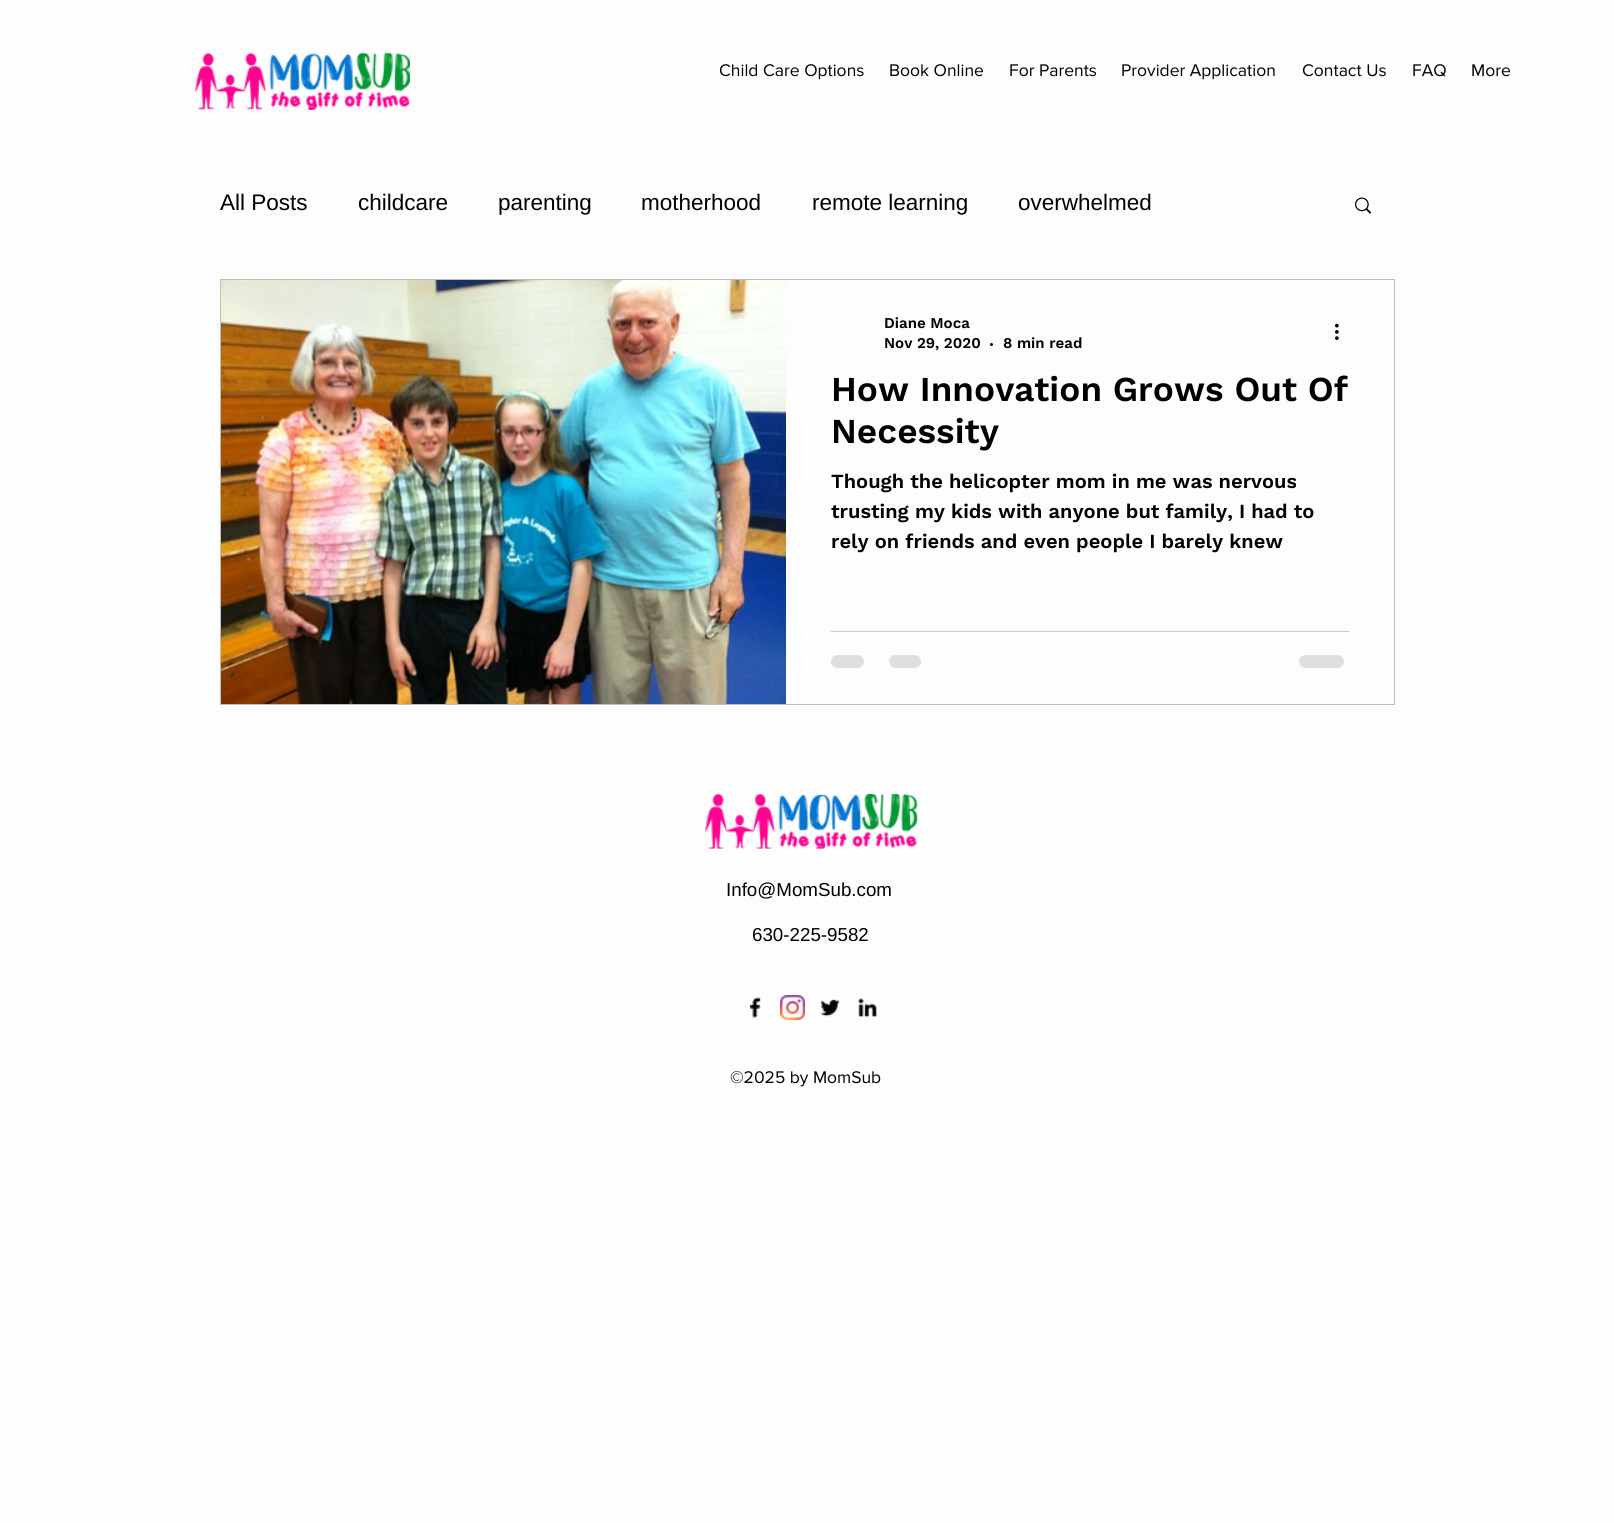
#include <cairo.h>
#include <math.h>
#include <stddef.h>

static cairo_t *c;
static void C(unsigned color){cairo_set_source_rgb(c, (color >> 16) / 255.0, (color >> 8 & 255) / 255.0, (color & 255) / 255.0);}
static void F(const char *family, double size, int italic, int bold){cairo_select_font_face(c, family, italic ? CAIRO_FONT_SLANT_ITALIC : CAIRO_FONT_SLANT_NORMAL,bold ? CAIRO_FONT_WEIGHT_BOLD : CAIRO_FONT_WEIGHT_NORMAL);cairo_set_font_size(c, size);}
static void T(double x, double y, const char *s){cairo_move_to(c, x, y);cairo_show_text(c, s);}
static void R(double x, double y, double w, double h){cairo_rectangle(c, x, y, w, h);cairo_fill(c);}
static void Q(double x, double y, double w, double h, double r){cairo_new_sub_path(c);cairo_arc(c, x + w - r, y + h - r, r, 0, M_PI / 2);cairo_arc(c, x + r, y + h - r, r, M_PI / 2, M_PI);cairo_arc(c, x + r, y + r, r, M_PI, 1.5 * M_PI);cairo_arc(c, x + w - r, y + r, r, 1.5 * M_PI, 2 * M_PI);cairo_close_path(c);}
static void I(const char *path, double x, double y, double w, double h){cairo_surface_t *image = cairo_image_surface_create_from_png(path);cairo_save(c);cairo_set_source_surface(c, image, x, y);cairo_rectangle(c, x, y, w, h);cairo_fill(c);cairo_restore(c);cairo_surface_destroy(image);}
int main(void) {
cairo_surface_t *surface = cairo_image_surface_create(CAIRO_FORMAT_RGB24, 1614, 1523);
c = cairo_create(surface);
cairo_font_options_t *options = cairo_font_options_create();
cairo_font_options_set_hint_metrics(options, CAIRO_HINT_METRICS_OFF);
cairo_font_options_set_hint_style(options, CAIRO_HINT_STYLE_NONE);
cairo_set_font_options(c, options);
cairo_set_miter_limit(c, 4);
C(0xfdfdfd);
cairo_paint(c);
I("1.png",195,52,215,58);
F("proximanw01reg",17.5,0,0);
C(0x000000);
T(719,76,"Child Care Options");
T(889,76,"Book Online");
T(1009,76,"For Parents");
T(1121,76,"Provider Application");
T(1302,76,"Contact Us");
T(1412,76,"FAQ");
T(1471,76,"More");
F("Liberation Sans",22.5,0,0);
T(220,210,"All Posts");
T(358,210,"childcare");
T(498,210,"parenting");
T(641,210,"motherhood");
T(812,210,"remote learning");
T(1018,210,"overwhelmed");
I("2.png",1355,197,17,17);
cairo_rectangle(c,220.5,279.5,1174,425);
C(0xbebebe);
cairo_set_line_width(c,1);
cairo_stroke(c);
I("3.png",221,280,565,424);
F("Work Sans SemiBold",15,0,0);
C(0x000000);
T(884,328,"Diane Moca");
T(884,348,"Nov 29, 2020");
cairo_new_path(c);
cairo_arc(c,991.5,344.5,1.5,0,2 * M_PI);
cairo_fill(c);
T(1003,348,"8 min read");
I("4.png",1335,323,4,17);
F("Work Sans SemiBold",35,0,0);
T(831,401,"How Innovation Grows Out Of");
T(831,443,"Necessity");
F("Work Sans SemiBold",20,0,0);
T(831,488,"Though the helicopter mom in me was nervous");
T(831,518,"trusting my kids with anyone but family, I had to");
T(831,548,"rely on friends and even people I barely knew");
C(0xcacaca);
R(831,631,518,1);
C(0xdfdfdf);
Q(831,655,33,13,6.5);
cairo_fill(c);
Q(889,655,32,13,6.5);
cairo_fill(c);
Q(1299,655,45,13,6.5);
cairo_fill(c);
I("5.png",705,793,213,56);
F("Liberation Sans",18.75,0,0);
C(0x000000);
T(726,896,"Info@MomSub.com");
T(752,941,"630-225-9582");
I("6.png",749,997,12,21);
I("7.png",780,995,25,25);
I("8.png",820,999,20,18);
I("9.png",858,998,19,19);
F("proximanw01reg",17.5,0,0);
T(730,1083,"©2025 by MomSub");
cairo_surface_write_to_png(surface, "o.png");
cairo_font_options_destroy(options);
cairo_destroy(c);
cairo_surface_destroy(surface);
return 0;
}
